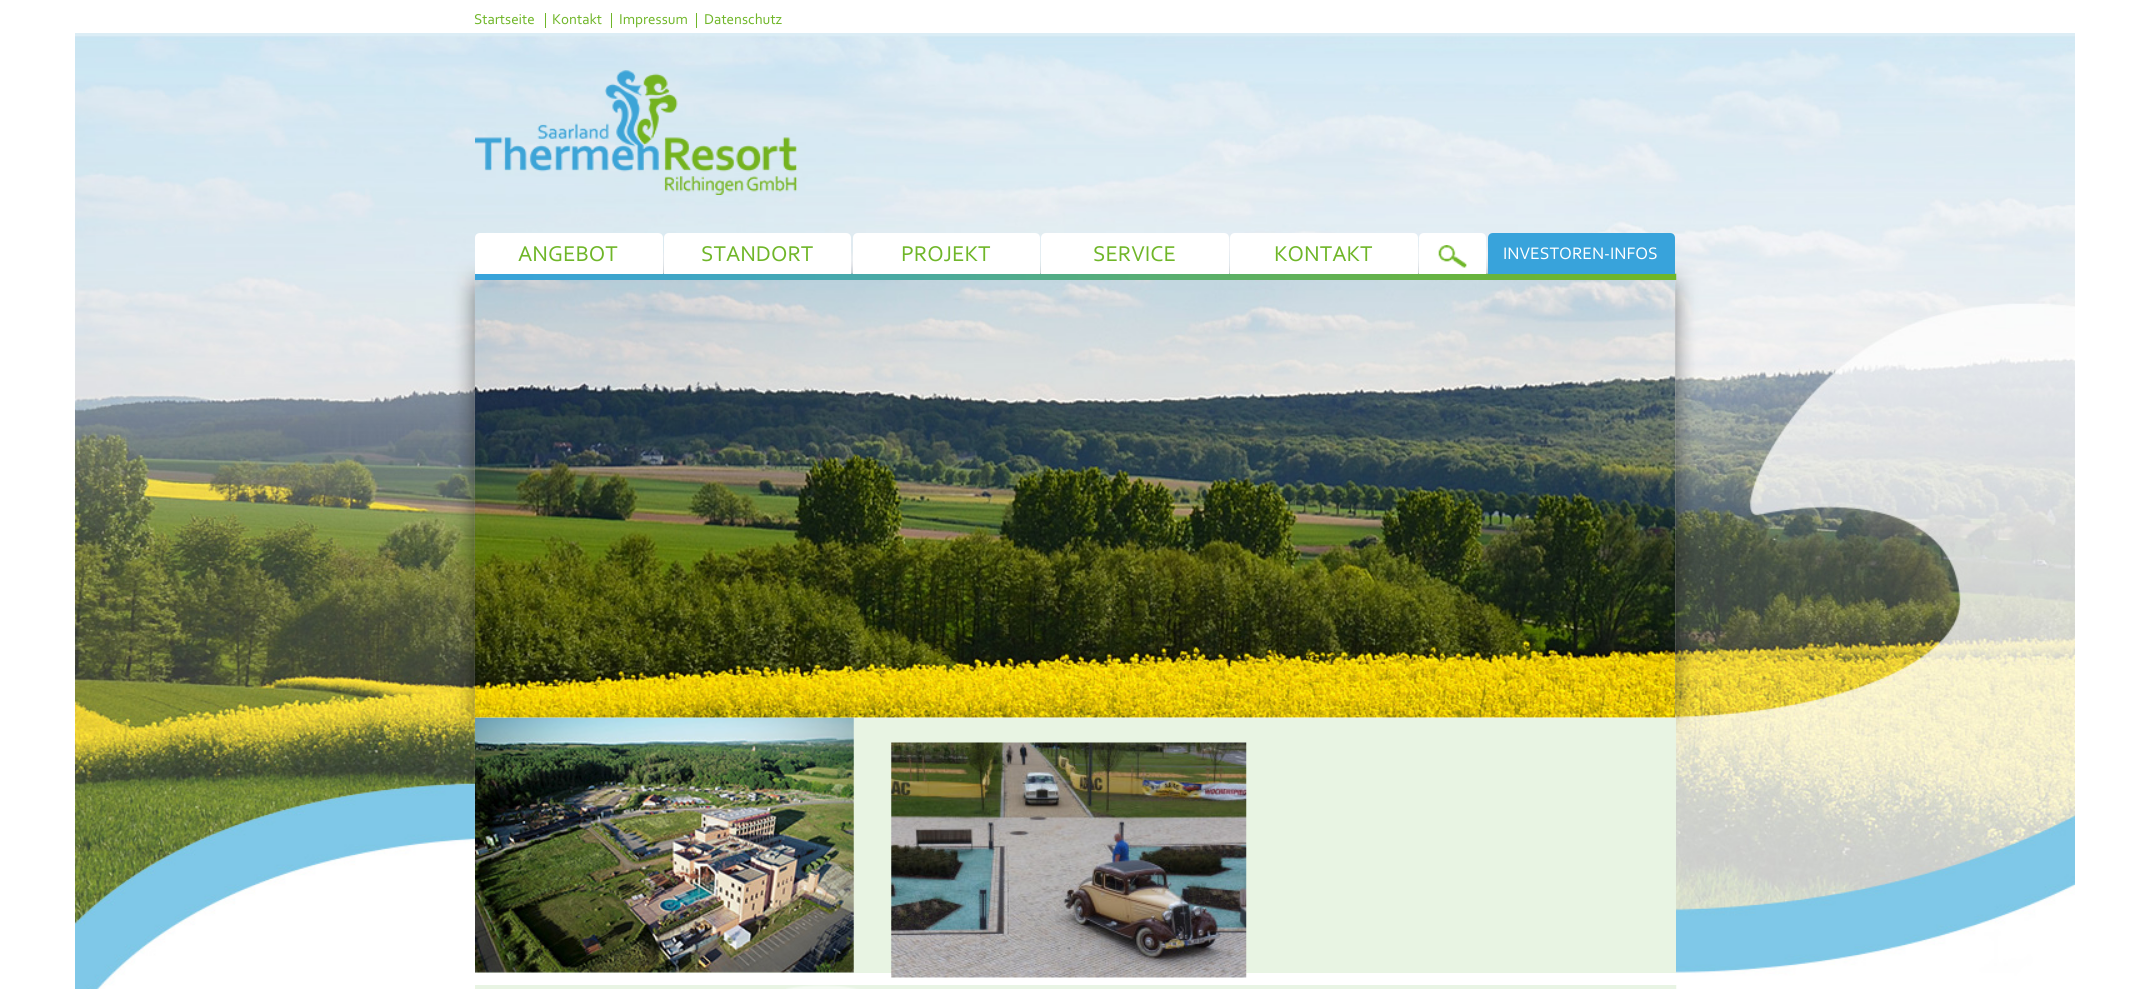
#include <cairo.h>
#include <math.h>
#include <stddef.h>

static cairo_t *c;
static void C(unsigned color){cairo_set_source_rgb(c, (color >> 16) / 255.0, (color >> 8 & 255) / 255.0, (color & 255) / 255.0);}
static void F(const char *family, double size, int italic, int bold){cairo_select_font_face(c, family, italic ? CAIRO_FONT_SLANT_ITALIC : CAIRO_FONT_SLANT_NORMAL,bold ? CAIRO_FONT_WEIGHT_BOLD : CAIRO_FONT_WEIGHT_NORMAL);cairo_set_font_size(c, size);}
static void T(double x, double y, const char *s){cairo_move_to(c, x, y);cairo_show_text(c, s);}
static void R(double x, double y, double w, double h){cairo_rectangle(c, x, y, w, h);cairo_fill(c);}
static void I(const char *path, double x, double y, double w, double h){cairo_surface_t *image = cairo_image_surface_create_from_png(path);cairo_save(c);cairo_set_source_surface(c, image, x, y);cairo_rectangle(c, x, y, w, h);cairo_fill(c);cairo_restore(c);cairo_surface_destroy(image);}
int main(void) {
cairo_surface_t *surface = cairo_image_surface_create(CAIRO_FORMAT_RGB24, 2150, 989);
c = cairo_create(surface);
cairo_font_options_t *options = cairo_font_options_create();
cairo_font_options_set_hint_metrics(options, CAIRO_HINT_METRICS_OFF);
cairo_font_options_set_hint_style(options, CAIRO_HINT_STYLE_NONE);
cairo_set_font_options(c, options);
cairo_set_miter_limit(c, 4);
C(0xffffff);
cairo_paint(c);
I("1.png",75,33,2000,956);
F("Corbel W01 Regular",15,0,0);
C(0x6fb628);
T(474,24,"Startseite");
T(552,24,"Kontakt");
R(545,13,1,15);
T(619,24,"Impressum");
R(611,13,1,15);
T(704,24,"Datenschutz");
R(696,13,1,15);
I("2.png",475,70,322,125);
I("3.png",475,273,1202,7);
C(0xffffff);
cairo_new_path(c);
cairo_move_to(c,480,233);
cairo_line_to(c,658,233);
cairo_curve_to(c,661,233,663,235,663,238);
cairo_line_to(c,663,274);
cairo_line_to(c,475,274);
cairo_line_to(c,475,238);
cairo_curve_to(c,475,235,477,233,480,233);
cairo_close_path(c);
cairo_fill(c);
F("Corbel W01 Regular",22.5,0,0);
C(0x6fb628);
T(518,261,"ANGEBOT");
C(0xffffff);
cairo_new_path(c);
cairo_move_to(c,669,233);
cairo_line_to(c,846,233);
cairo_curve_to(c,849,233,851,235,851,238);
cairo_line_to(c,851,274);
cairo_line_to(c,664,274);
cairo_line_to(c,664,238);
cairo_curve_to(c,664,235,666,233,669,233);
cairo_close_path(c);
cairo_fill(c);
C(0x6fb628);
T(701,261,"STANDORT");
C(0xffffff);
cairo_new_path(c);
cairo_move_to(c,858,233);
cairo_line_to(c,1035,233);
cairo_curve_to(c,1038,233,1040,235,1040,238);
cairo_line_to(c,1040,274);
cairo_line_to(c,853,274);
cairo_line_to(c,853,238);
cairo_curve_to(c,853,235,855,233,858,233);
cairo_close_path(c);
cairo_fill(c);
C(0x6fb628);
T(901,261,"PROJEKT");
C(0xffffff);
cairo_new_path(c);
cairo_move_to(c,1046,233);
cairo_line_to(c,1224,233);
cairo_curve_to(c,1227,233,1229,235,1229,238);
cairo_line_to(c,1229,274);
cairo_line_to(c,1041,274);
cairo_line_to(c,1041,238);
cairo_curve_to(c,1041,235,1043,233,1046,233);
cairo_close_path(c);
cairo_fill(c);
C(0x6fb628);
T(1093,261,"SERVICE");
C(0xffffff);
cairo_new_path(c);
cairo_move_to(c,1235,233);
cairo_line_to(c,1413,233);
cairo_curve_to(c,1416,233,1418,235,1418,238);
cairo_line_to(c,1418,274);
cairo_line_to(c,1230,274);
cairo_line_to(c,1230,238);
cairo_curve_to(c,1230,235,1232,233,1235,233);
cairo_close_path(c);
cairo_fill(c);
C(0x6fb628);
T(1274,261,"KONTAKT");
C(0xffffff);
cairo_new_path(c);
cairo_move_to(c,1424,233);
cairo_line_to(c,1481,233);
cairo_curve_to(c,1484,233,1486,235,1486,238);
cairo_line_to(c,1486,274);
cairo_line_to(c,1419,274);
cairo_line_to(c,1419,238);
cairo_curve_to(c,1419,235,1421,233,1424,233);
cairo_close_path(c);
cairo_fill(c);
I("4.png",1438,245,29,23);
C(0x38a3db);
cairo_new_path(c);
cairo_move_to(c,1493,233);
cairo_line_to(c,1670,233);
cairo_curve_to(c,1673,233,1675,235,1675,238);
cairo_line_to(c,1675,274);
cairo_line_to(c,1488,274);
cairo_line_to(c,1488,238);
cairo_curve_to(c,1488,235,1490,233,1493,233);
cairo_close_path(c);
cairo_fill(c);
F("Corbel W01 Regular",17.5,0,0);
C(0xffffff);
T(1503,259,"INVESTOREN-INFOS");
C(0xe8f4e3);
R(475,718,1201,255);
I("6.png",475,717,379,256);
I("5.png",475,280,1200,438);
I("7.png",891,742,356,236);
R(475,985,311,4);
I("8.png",786,985,891,4);
cairo_surface_write_to_png(surface, "o.png");
cairo_font_options_destroy(options);
cairo_destroy(c);
cairo_surface_destroy(surface);
return 0;
}
